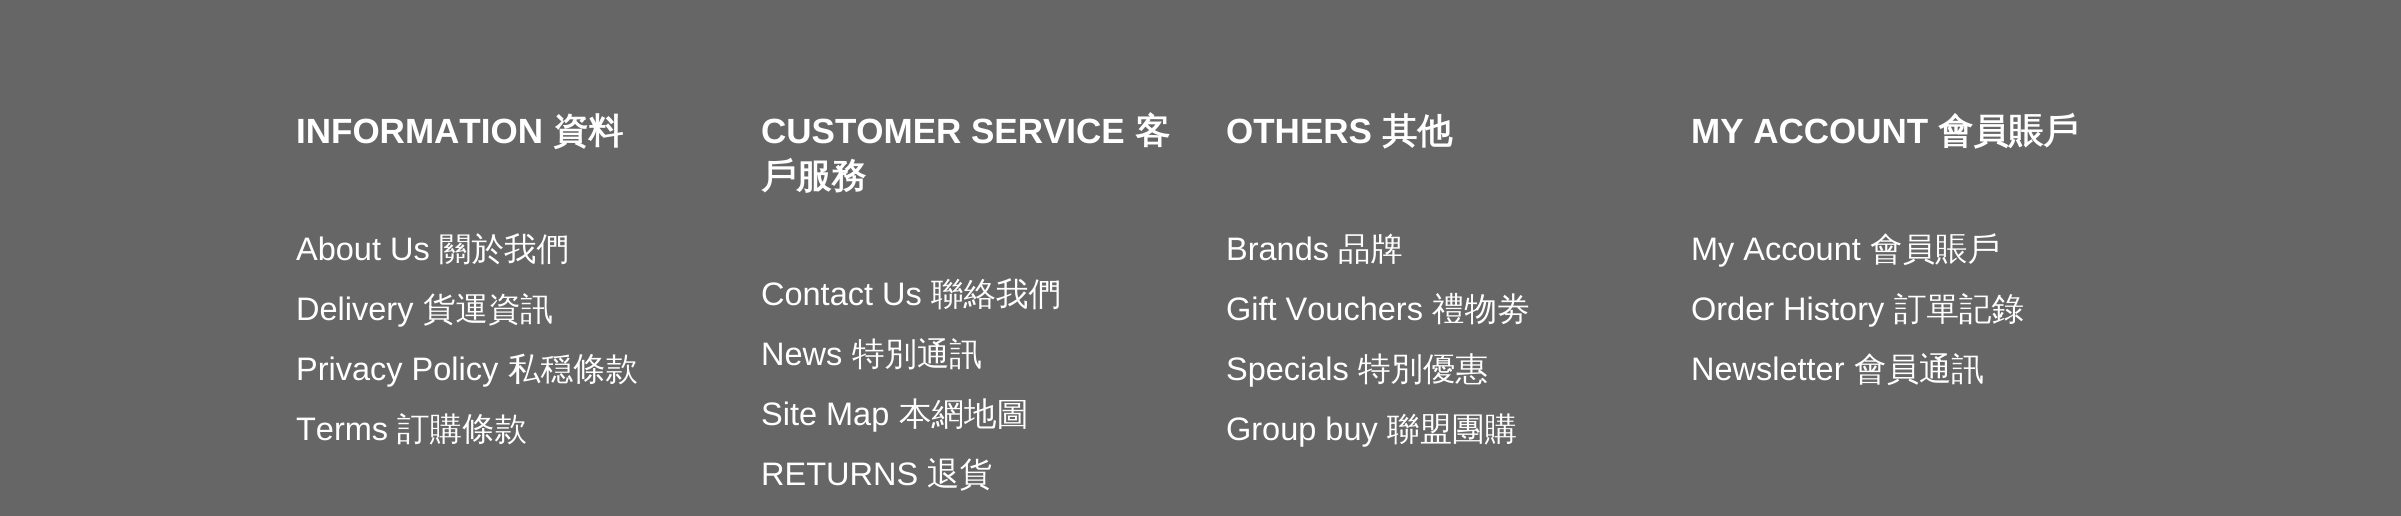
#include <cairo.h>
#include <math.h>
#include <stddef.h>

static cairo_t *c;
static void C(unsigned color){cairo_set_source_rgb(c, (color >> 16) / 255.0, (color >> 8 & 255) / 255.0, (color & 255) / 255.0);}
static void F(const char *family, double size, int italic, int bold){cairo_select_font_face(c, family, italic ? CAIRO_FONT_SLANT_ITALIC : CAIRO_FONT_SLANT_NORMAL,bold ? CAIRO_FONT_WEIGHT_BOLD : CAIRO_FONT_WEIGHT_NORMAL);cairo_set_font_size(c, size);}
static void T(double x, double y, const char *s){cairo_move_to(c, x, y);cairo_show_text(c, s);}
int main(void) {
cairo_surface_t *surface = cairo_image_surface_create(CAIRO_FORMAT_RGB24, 2401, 516);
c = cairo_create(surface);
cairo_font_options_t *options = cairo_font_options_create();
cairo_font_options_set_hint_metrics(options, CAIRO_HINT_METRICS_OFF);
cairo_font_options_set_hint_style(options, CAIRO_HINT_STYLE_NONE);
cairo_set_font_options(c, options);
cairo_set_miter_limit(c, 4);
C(0x666666);
cairo_paint(c);
F("Liberation Sans",35,0,1);
C(0xffffff);
T(296,143,"INFORMATION");
F("WenQuanYi Zen Hei",35,0,1);
T(553,143,"資料");
F("Liberation Sans",32.5,0,0);
T(296,260,"About Us");
F("WenQuanYi Zen Hei Medium",32.5,0,0);
T(439,260,"關於我們");
F("Liberation Sans",32.5,0,0);
T(296,320,"Delivery");
F("WenQuanYi Zen Hei Medium",32.5,0,0);
T(423,320,"貨運資訊");
F("Liberation Sans",32.5,0,0);
T(296,380,"Privacy Policy");
F("WenQuanYi Zen Hei Medium",32.5,0,0);
T(508,380,"私穏條款");
F("Liberation Sans",32.5,0,0);
T(296,440,"Terms");
F("WenQuanYi Zen Hei Medium",32.5,0,0);
T(397,440,"訂購條款");
F("Liberation Sans",35,0,1);
T(761,143,"CUSTOMER SERVICE");
F("WenQuanYi Zen Hei",35,0,1);
T(1135,143,"客");
T(761,188,"戶服務");
F("Liberation Sans",32.5,0,0);
T(761,305,"Contact Us");
F("WenQuanYi Zen Hei Medium",32.5,0,0);
T(931,305,"聯絡我們");
F("Liberation Sans",32.5,0,0);
T(761,365,"News");
F("WenQuanYi Zen Hei Medium",32.5,0,0);
T(852,365,"特別通訊");
F("Liberation Sans",32.5,0,0);
T(761,425,"Site Map");
F("WenQuanYi Zen Hei Medium",32.5,0,0);
T(899,425,"本網地圖");
F("Liberation Sans",32.5,0,0);
T(761,485,"RETURNS");
F("WenQuanYi Zen Hei Medium",32.5,0,0);
T(927,485,"退貨");
F("Liberation Sans",35,0,1);
T(1226,143,"OTHERS");
F("WenQuanYi Zen Hei",35,0,1);
T(1382,143,"其他");
F("Liberation Sans",32.5,0,0);
T(1226,260,"Brands");
F("WenQuanYi Zen Hei Medium",32.5,0,0);
T(1338,260,"品牌");
F("Liberation Sans",32.5,0,0);
T(1226,320,"Gift Vouchers");
F("WenQuanYi Zen Hei Medium",32.5,0,0);
T(1432,320,"禮物劵");
F("Liberation Sans",32.5,0,0);
T(1226,380,"Specials");
F("WenQuanYi Zen Hei Medium",32.5,0,0);
T(1358,380,"特別優惠");
F("Liberation Sans",32.5,0,0);
T(1226,440,"Group buy");
F("WenQuanYi Zen Hei Medium",32.5,0,0);
T(1387,440,"聯盟團購");
F("Liberation Sans",35,0,1);
T(1691,143,"MY ACCOUNT");
F("WenQuanYi Zen Hei",35,0,1);
T(1938,143,"會員賬戶");
F("Liberation Sans",32.5,0,0);
T(1691,260,"My Account");
F("WenQuanYi Zen Hei Medium",32.5,0,0);
T(1870,260,"會員賬戶");
F("Liberation Sans",32.5,0,0);
T(1691,320,"Order History");
F("WenQuanYi Zen Hei Medium",32.5,0,0);
T(1894,320,"訂單記錄");
F("Liberation Sans",32.5,0,0);
T(1691,380,"Newsletter");
F("WenQuanYi Zen Hei Medium",32.5,0,0);
T(1854,380,"會員通訊");
cairo_surface_write_to_png(surface, "o.png");
cairo_font_options_destroy(options);
cairo_destroy(c);
cairo_surface_destroy(surface);
return 0;
}
